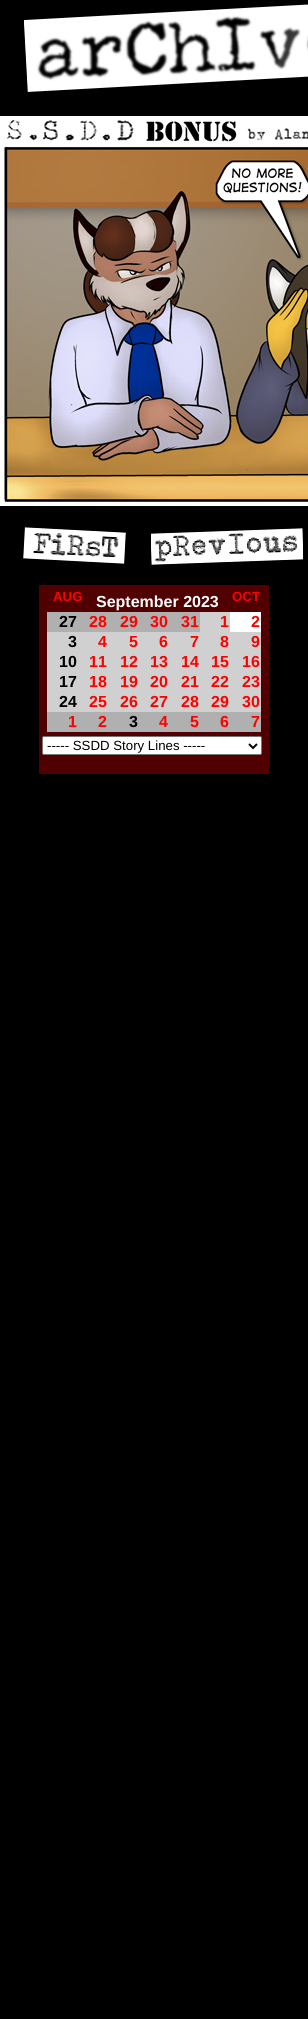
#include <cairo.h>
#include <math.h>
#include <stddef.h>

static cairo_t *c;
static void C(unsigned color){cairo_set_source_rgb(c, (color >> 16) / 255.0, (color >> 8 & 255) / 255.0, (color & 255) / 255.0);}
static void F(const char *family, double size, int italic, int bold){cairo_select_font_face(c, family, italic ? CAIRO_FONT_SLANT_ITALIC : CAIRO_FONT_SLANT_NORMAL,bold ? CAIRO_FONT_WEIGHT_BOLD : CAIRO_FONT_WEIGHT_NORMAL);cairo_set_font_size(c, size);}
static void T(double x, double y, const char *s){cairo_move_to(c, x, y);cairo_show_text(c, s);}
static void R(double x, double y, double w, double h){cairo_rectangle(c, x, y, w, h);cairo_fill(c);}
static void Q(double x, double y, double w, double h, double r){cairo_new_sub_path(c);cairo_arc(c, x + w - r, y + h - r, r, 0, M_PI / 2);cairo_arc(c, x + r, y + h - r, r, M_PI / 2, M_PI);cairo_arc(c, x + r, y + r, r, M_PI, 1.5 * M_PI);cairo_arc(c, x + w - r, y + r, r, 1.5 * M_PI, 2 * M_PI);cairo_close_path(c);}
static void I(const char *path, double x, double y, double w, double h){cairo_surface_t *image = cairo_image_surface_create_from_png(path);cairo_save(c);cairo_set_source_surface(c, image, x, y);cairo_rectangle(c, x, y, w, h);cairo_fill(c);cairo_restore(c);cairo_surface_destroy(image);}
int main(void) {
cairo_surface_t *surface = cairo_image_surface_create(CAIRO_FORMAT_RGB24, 308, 2019);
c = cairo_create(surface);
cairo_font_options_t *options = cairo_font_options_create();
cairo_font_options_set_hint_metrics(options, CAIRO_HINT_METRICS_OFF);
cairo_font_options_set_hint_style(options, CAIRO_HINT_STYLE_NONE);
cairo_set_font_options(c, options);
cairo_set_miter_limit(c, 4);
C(0x000000);
cairo_paint(c);
I("1.png",24,4,284,88);
I("2.png",0,116,308,390);
I("3.png",23,527,103,37);
I("4.png",151,528,152,37);
C(0x500000);
R(39,585,230,189);
F("Liberation Sans",13.25,0,1);
C(0xff0000);
T(53,601,"AUG");
F("Liberation Sans",16,0,1);
C(0xffffff);
T(96,607,"September 2023");
F("Liberation Sans",13.25,0,1);
C(0xff0000);
T(232,601,"OCT");
C(0xd0d0d0);
R(200,612,30,20);
C(0xb0b0b0);
R(47,612,153,20);
F("Liberation Sans",16,0,1);
C(0x000000);
T(59,627,"27");
C(0xff0000);
T(89,627,"28");
T(120,627,"29");
T(150,627,"30");
T(181,627,"31");
T(220,627,"1");
C(0xffffff);
R(230,612,31,20);
C(0xff0000);
T(251,627,"2");
C(0xd0d0d0);
R(47,632,214,80);
C(0x000000);
T(68,647,"3");
C(0xff0000);
T(98,647,"4");
T(129,647,"5");
T(159,647,"6");
T(190,647,"7");
T(220,647,"8");
T(251,647,"9");
C(0x000000);
T(59,667,"10");
C(0xff0000);
T(89,667,"11");
T(120,667,"12");
T(150,667,"13");
T(181,667,"14");
T(211,667,"15");
T(242,667,"16");
C(0x000000);
T(59,687,"17");
C(0xff0000);
T(89,687,"18");
T(120,687,"19");
T(150,687,"20");
T(181,687,"21");
T(211,687,"22");
T(242,687,"23");
C(0x000000);
T(59,707,"24");
C(0xff0000);
T(89,707,"25");
T(120,707,"26");
T(150,707,"27");
T(181,707,"28");
T(211,707,"29");
T(242,707,"30");
C(0xb0b0b0);
R(47,712,214,20);
C(0xff0000);
T(68,727,"1");
T(98,727,"2");
C(0x000000);
T(129,727,"3");
C(0xff0000);
T(159,727,"4");
T(190,727,"5");
T(220,727,"6");
T(251,727,"7");
C(0xffffff);
Q(42.5,736.5,219,18,1.5);
cairo_fill_preserve(c);
C(0x767676);
cairo_set_line_width(c,1);
cairo_stroke(c);
cairo_new_path(c);
cairo_move_to(c,249,744);
cairo_line_to(c,253,748);
cairo_line_to(c,257,744);
C(0x000000);
cairo_set_line_width(c,2);
cairo_stroke(c);
F("Liberation Sans",13.25,0,0);
T(47,750,"----- SSDD Story Lines -----");
cairo_surface_write_to_png(surface, "o.png");
cairo_font_options_destroy(options);
cairo_destroy(c);
cairo_surface_destroy(surface);
return 0;
}
